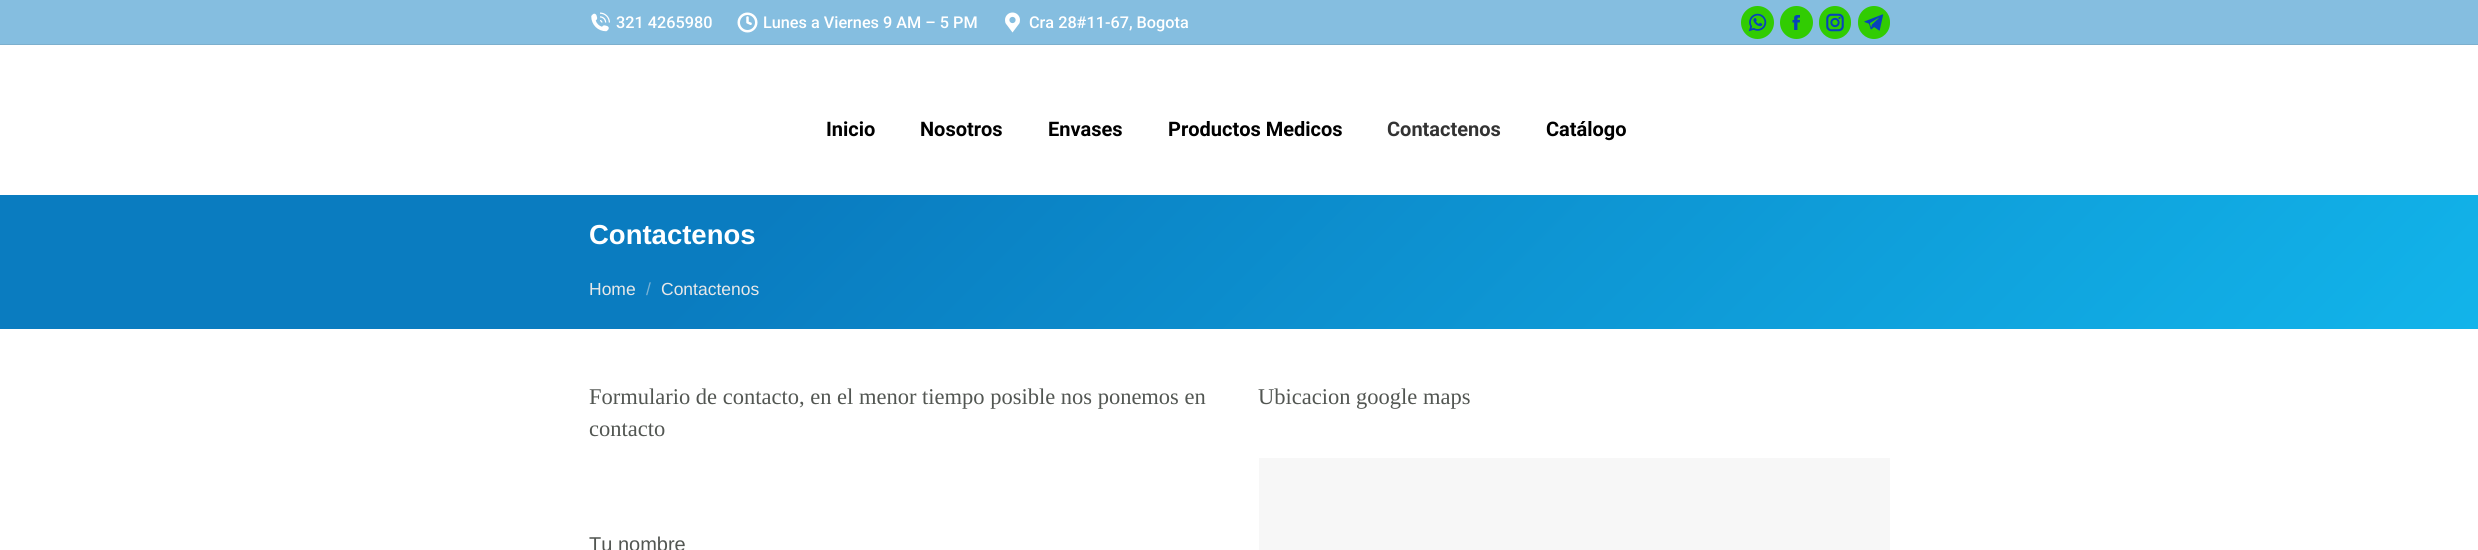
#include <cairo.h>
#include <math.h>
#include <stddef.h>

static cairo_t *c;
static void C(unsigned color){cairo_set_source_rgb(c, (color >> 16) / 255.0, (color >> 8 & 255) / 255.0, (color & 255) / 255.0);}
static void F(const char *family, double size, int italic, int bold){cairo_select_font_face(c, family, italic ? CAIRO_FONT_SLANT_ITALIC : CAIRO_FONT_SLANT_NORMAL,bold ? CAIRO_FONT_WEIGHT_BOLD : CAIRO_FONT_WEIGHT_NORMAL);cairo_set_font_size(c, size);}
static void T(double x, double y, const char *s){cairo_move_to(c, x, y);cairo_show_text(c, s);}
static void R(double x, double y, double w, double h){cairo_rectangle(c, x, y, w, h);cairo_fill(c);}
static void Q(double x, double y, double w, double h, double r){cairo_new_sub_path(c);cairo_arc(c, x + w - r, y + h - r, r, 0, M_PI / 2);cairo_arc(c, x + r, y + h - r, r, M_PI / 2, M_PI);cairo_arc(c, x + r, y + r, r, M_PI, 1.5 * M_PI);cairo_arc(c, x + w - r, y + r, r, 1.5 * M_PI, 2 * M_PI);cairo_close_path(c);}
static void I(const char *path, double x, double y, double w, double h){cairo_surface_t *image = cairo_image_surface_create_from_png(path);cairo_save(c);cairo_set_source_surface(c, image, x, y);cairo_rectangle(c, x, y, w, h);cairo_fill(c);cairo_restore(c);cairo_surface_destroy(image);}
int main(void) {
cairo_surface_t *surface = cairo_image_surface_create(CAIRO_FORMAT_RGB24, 2478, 550);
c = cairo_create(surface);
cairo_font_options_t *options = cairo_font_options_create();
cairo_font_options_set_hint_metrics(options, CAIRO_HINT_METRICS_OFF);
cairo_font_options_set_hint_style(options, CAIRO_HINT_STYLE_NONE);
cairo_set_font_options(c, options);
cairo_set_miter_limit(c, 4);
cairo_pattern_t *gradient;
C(0xffffff);
cairo_paint(c);
C(0x85bee0);
R(0,0,2478,44);
I("1.png",591,12,19,20);
F("Roboto Medium",16.25,0,0);
C(0xffffff);
T(616,28,"321 4265980");
I("2.png",737,12,21,21);
T(763,28,"Lunes a Viernes 9 AM – 5 PM");
I("3.png",1005,12,15,21);
T(1029,28,"Cra 28#11-67, Bogota");
C(0x31cc02);
cairo_new_path(c);
cairo_arc(c,1757.5,22.5,16.5,0,2 * M_PI);
cairo_fill(c);
I("4.png",1748,13,19,19);
cairo_arc(c,1796.5,22.5,16.5,0,2 * M_PI);
cairo_fill(c);
I("5.png",1792,15,8,15);
Q(1819,6,32,33,16);
cairo_fill(c);
I("6.png",1826,13,18,19);
Q(1858,6,32,33,16);
cairo_fill(c);
I("7.png",1864,14,20,17);
C(0x7cafcd);
R(0,44,2478,1);
F("Roboto",20,0,1);
C(0x000000);
T(826,136,"Inicio");
T(920,136,"Nosotros");
T(1048,136,"Envases");
T(1168,136,"Productos Medicos");
C(0x333333);
T(1387,136,"Contactenos");
C(0x000000);
T(1546,136,"Catálogo");
gradient = cairo_pattern_create_linear(586,-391,1893,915);
cairo_pattern_add_color_stop_rgba(gradient,.3,0.039,0.486,0.753,1);
cairo_pattern_add_color_stop_rgba(gradient,1,0.071,0.706,0.918,1);
cairo_set_source(c,gradient);
cairo_pattern_destroy(gradient);
R(0,195,2478,134);
F("Liberation Sans",27.5,0,1);
C(0xffffff);
T(589,244,"Contactenos");
F("Liberation Sans",17.5,0,0);
C(0xe8e8e8);
T(589,295,"Home");
C(0x79b2d4);
T(646,295,"/");
C(0xe8e8e8);
T(661,295,"Contactenos");
F("Liberation Serif",22.5,0,0);
C(0x525652);
T(589,404,"Formulario de contacto, en el menor tiempo posible nos ponemos en");
T(589,436,"contacto");
F("Liberation Sans",20,0,0);
T(589,551,"Tu nombre");
F("Liberation Serif",22.5,0,0);
T(1258,404,"Ubicacion google maps");
C(0xf7f7f7);
R(1259,458,631,92);
cairo_surface_write_to_png(surface, "o.png");
cairo_font_options_destroy(options);
cairo_destroy(c);
cairo_surface_destroy(surface);
return 0;
}
